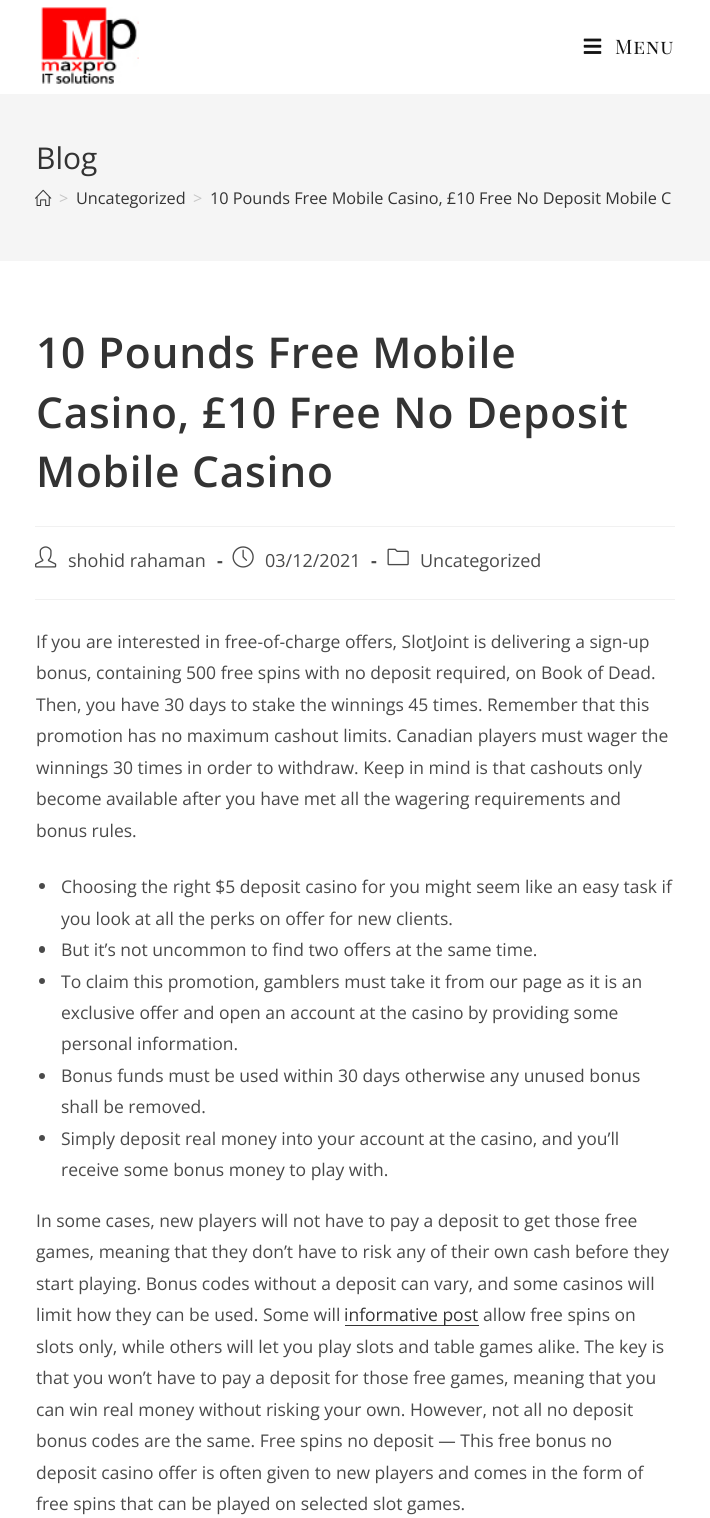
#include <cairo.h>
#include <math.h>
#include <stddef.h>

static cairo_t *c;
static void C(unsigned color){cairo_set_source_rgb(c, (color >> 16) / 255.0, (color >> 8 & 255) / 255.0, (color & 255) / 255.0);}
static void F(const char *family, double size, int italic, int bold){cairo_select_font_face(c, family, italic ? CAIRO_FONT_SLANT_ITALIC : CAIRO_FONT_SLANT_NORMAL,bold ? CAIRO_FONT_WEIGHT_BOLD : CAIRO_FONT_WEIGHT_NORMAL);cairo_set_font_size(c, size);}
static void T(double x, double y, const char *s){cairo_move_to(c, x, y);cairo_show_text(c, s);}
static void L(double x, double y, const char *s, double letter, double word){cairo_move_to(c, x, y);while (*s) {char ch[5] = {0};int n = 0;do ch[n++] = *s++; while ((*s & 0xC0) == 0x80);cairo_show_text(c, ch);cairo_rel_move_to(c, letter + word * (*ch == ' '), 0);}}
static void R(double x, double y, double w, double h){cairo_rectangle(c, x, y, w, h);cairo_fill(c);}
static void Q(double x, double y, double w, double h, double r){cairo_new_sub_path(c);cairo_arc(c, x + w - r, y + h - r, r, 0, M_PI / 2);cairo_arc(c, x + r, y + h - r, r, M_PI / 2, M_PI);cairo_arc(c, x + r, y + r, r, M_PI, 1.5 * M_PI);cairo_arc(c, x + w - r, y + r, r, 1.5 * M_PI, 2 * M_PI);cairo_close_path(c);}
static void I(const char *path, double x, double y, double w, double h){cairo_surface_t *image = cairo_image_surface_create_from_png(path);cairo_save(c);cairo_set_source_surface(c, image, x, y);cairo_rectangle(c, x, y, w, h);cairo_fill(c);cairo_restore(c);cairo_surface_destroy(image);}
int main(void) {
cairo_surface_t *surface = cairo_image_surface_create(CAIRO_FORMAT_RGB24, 710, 1518);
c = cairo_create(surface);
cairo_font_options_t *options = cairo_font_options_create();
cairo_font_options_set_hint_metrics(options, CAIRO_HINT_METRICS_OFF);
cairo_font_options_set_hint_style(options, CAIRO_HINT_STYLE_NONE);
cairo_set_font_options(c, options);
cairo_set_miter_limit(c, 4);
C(0xffffff);
cairo_paint(c);
I("1.png",41,7,98,77);
I("2.png",583,38,19,16);
F("Playfair Display SC",20,0,0);
C(0x141414);
L(615,54,"Menu",.75,0);
C(0xf5f5f5);
R(0,94,710,167);
F("Open Sans",30,0,0);
C(0x333333);
T(36,169,"Blog");
I("3.png",35,189,17,17);
F("Open Sans",16.25,0,0);
C(0xc6c6c6);
T(59,204,">");
C(0x333333);
T(76,204,"Uncategorized");
C(0xc6c6c6);
T(193,204,">");
C(0x333333);
T(210,204,"10 Pounds Free Mobile Casino, £10 Free No Deposit Mobile C");
C(0xf1f1f1);
R(35,526,640,1);
F("Open Sans SemiBold",42.5,0,0);
C(0x333333);
L(36,368,"10 Pounds Free Mobile",.75,0);
L(36,428,"Casino, £10 Free No Deposit",.75,0);
L(36,487,"Mobile Casino",.75,0);
C(0xf1f1f1);
R(35,599,640,1);
I("4.png",35,546,22,22);
F("Open Sans",18,0,0);
C(0x4a4a4a);
T(68,567,"shohid rahaman");
F("Open Sans",18,0,1);
T(217,567,"-");
I("5.png",232,546,22,22);
F("Open Sans",18,0,0);
T(265,567,"03/12/2021");
F("Open Sans",18,0,1);
T(371,567,"-");
I("6.png",387,548,22,18);
F("Open Sans",18,0,0);
T(420,567,"Uncategorized");
F("Open Sans",17.5,0,0);
T(36,648,"If you are interested in free-of-charge offers, SlotJoint is delivering a sign-up");
T(36,679,"bonus, containing 500 free spins with no deposit required, on Book of Dead.");
T(36,711,"Then, you have 30 days to stake the winnings 45 times. Remember that this");
T(36,742,"promotion has no maximum cashout limits. Canadian players must wager the");
T(36,774,"winnings 30 times in order to withdraw. Keep in mind is that cashouts only");
T(36,805,"become available after you have met all the wagering requirements and");
T(36,837,"bonus rules.");
cairo_new_path(c);
cairo_arc(c,42,886,3,0,2 * M_PI);
cairo_fill(c);
T(61,893,"Choosing the right $5 deposit casino for you might seem like an easy task if");
T(61,925,"you look at all the perks on offer for new clients.");
Q(39,946,6,7,3);
cairo_fill(c);
T(61,956,"But it’s not uncommon to find two offers at the same time.");
cairo_new_path(c);
cairo_arc(c,42,981,3,0,2 * M_PI);
cairo_fill(c);
T(61,988,"To claim this promotion, gamblers must take it from our page as it is an");
T(61,1019,"exclusive offer and open an account at the casino by providing some");
T(61,1050,"personal information.");
cairo_new_path(c);
cairo_arc(c,42,1076,3,0,2 * M_PI);
cairo_fill(c);
T(61,1082,"Bonus funds must be used within 30 days otherwise any unused bonus");
T(61,1113,"shall be removed.");
cairo_new_path(c);
cairo_arc(c,42,1138,3,0,2 * M_PI);
cairo_fill(c);
T(61,1145,"Simply deposit real money into your account at the casino, and you’ll");
T(61,1176,"receive some bonus money to play with.");
T(36,1227,"In some cases, new players will not have to pay a deposit to get those free");
T(36,1258,"games, meaning that they don’t have to risk any of their own cash before they");
T(36,1290,"start playing. Bonus codes without a deposit can vary, and some casinos will");
T(36,1321,"limit how they can be used. Some will");
C(0x333333);
R(345,1325,134,1);
T(344,1321,"informative post");
C(0x4a4a4a);
T(483,1321,"allow free spins on");
T(36,1353,"slots only, while others will let you play slots and table games alike. The key is");
T(36,1384,"that you won’t have to pay a deposit for those free games, meaning that you");
T(36,1416,"can win real money without risking your own. However, not all no deposit");
T(36,1447,"bonus codes are the same. Free spins no deposit — This free bonus no");
T(36,1479,"deposit casino offer is often given to new players and comes in the form of");
T(36,1510,"free spins that can be played on selected slot games.");
cairo_surface_write_to_png(surface, "o.png");
cairo_font_options_destroy(options);
cairo_destroy(c);
cairo_surface_destroy(surface);
return 0;
}
